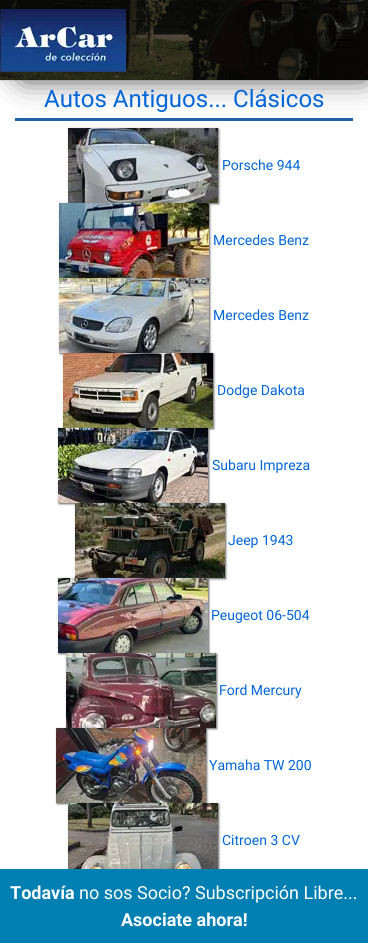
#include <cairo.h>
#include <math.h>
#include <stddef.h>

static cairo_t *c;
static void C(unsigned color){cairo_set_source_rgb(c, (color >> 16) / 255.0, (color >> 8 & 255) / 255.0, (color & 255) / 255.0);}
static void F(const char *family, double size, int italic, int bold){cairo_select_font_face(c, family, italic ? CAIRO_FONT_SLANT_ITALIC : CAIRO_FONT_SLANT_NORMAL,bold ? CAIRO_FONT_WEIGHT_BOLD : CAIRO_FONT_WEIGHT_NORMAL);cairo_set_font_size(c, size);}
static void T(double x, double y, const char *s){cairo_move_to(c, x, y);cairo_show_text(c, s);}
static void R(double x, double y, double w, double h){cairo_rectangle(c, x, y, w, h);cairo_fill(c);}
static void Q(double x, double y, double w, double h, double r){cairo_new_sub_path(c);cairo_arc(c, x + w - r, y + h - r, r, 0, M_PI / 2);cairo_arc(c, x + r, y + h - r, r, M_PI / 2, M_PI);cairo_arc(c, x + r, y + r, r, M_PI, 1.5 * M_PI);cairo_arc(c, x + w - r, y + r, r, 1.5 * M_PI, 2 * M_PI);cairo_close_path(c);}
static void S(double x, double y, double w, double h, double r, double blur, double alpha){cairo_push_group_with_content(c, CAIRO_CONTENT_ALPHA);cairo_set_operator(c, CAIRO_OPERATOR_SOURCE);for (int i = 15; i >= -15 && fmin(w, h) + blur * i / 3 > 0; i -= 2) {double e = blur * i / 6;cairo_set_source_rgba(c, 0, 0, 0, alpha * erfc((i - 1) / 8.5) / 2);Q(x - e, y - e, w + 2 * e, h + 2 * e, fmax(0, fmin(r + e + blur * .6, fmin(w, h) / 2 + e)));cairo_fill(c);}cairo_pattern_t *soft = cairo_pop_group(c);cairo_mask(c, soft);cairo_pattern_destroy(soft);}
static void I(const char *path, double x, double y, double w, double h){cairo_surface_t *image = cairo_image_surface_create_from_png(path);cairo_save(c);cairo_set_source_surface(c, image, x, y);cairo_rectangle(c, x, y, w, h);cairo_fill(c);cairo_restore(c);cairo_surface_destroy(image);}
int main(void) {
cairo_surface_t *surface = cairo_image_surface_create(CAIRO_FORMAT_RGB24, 368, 943);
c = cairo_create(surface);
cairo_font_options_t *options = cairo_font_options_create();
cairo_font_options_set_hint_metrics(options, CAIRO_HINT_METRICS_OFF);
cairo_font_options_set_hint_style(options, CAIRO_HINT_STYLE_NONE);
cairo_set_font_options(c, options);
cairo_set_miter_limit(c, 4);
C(0xffffff);
cairo_paint(c);
C(0x000000);
S(0,4,368,81,0,5,.05);
C(0xdee2e6);
R(0,80,368,1);
C(0x000000);
S(23,23,342,54,0,15.5,.75);
I("1.png",0,0,368,80);
I("2.png",0,9,126,63);
Q(319.5,22.5,48,35,3.5);
cairo_set_source_rgba(c,0,0,0,0.1);
cairo_set_line_width(c,1);
cairo_stroke(c);
I("3.png",333,32,20,16);
C(0x2061a8);
R(15,118,338,3);
F("Roboto",24,0,0);
C(0x0366d6);
T(44,107,"Autos Antiguos... Clásicos");
C(0x666666);
S(69,129,150,75,0,1,1);
I("4.png",68,128,150,75);
F("Roboto",14,0,0);
C(0x0366d6);
T(222,170,"Porsche 944");
C(0x666666);
S(60,204,150,75,0,1,1);
I("5.png",59,203,150,75);
C(0x0366d6);
T(213,245,"Mercedes Benz");
C(0x666666);
S(60,279,150,75,0,1,1);
I("6.png",59,278,150,75);
C(0x0366d6);
T(213,320,"Mercedes Benz");
C(0x666666);
S(64,354,150,75,0,1,1);
I("7.png",63,353,150,75);
C(0x0366d6);
T(217,395,"Dodge Dakota");
C(0x666666);
S(59,429,150,75,0,1,1);
I("8.png",58,428,150,75);
C(0x0366d6);
T(212,470,"Subaru Impreza");
C(0x666666);
S(76,504,150,75,0,1,1);
I("9.png",75,503,150,75);
C(0x0366d6);
T(228,545,"Jeep 1943");
C(0x666666);
S(59,579,150,75,0,1,1);
I("10.png",58,578,150,75);
C(0x0366d6);
T(211,620,"Peugeot 06-504");
C(0x666666);
S(67,654,150,75,0,1,1);
I("11.png",66,653,150,75);
C(0x0366d6);
T(219,695,"Ford Mercury");
C(0x666666);
S(57,729,150,75,0,1,1);
I("12.png",56,728,150,75);
C(0x0366d6);
T(209,770,"Yamaha TW 200");
C(0x666666);
S(69,804,150,75,0,1,1);
I("13.png",68,803,150,66);
C(0x0366d6);
T(222,845,"Citroen 3 CV");
C(0x007fb2);
R(0,869,368,74);
F("Roboto",18,0,1);
C(0xffffff);
T(10,899,"Todavía");
F("Roboto",18,0,0);
T(79,899,"no sos Socio? Subscripción Libre...");
F("Roboto",18,0,1);
T(121,926,"Asociate ahora!");
cairo_surface_write_to_png(surface, "o.png");
cairo_font_options_destroy(options);
cairo_destroy(c);
cairo_surface_destroy(surface);
return 0;
}
